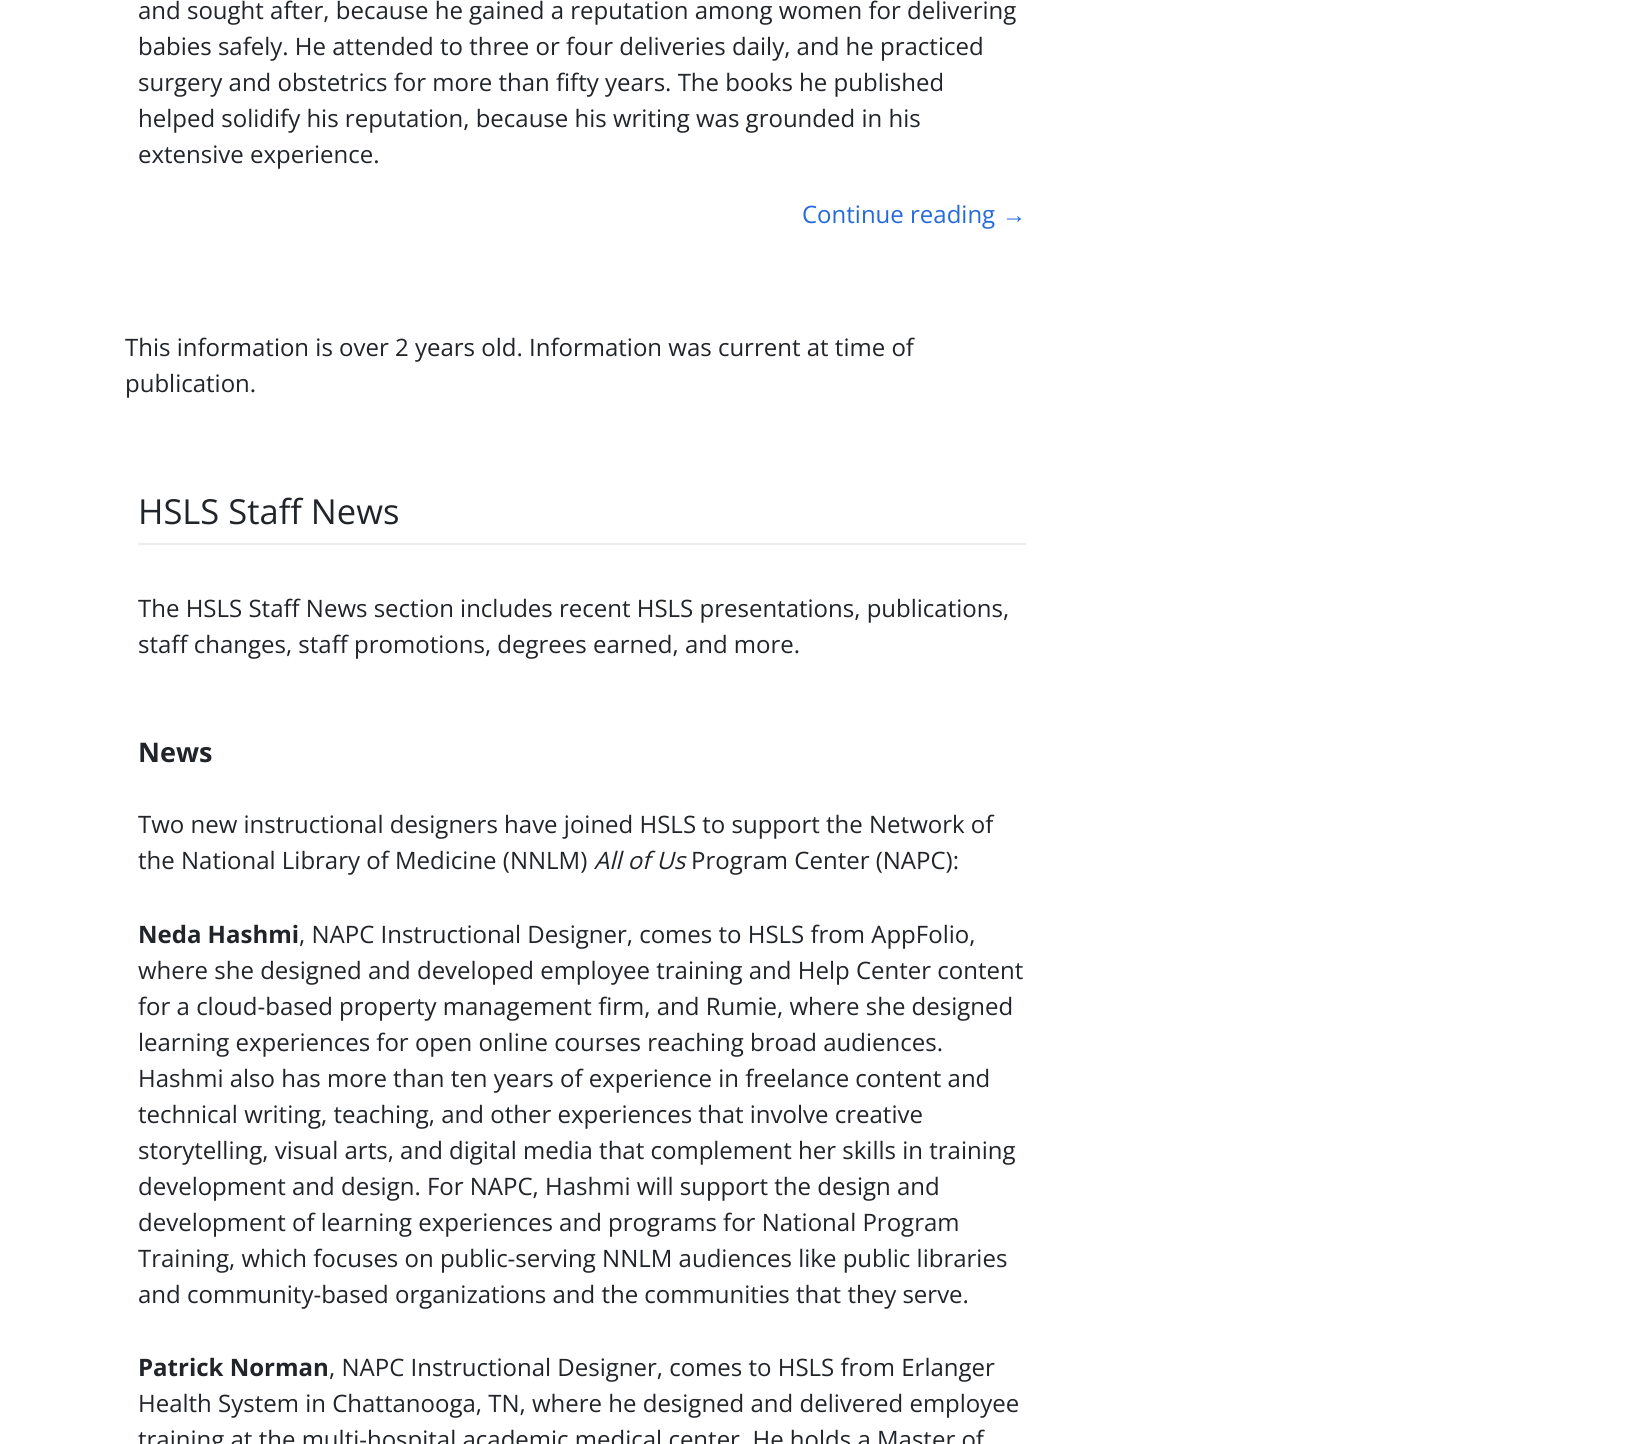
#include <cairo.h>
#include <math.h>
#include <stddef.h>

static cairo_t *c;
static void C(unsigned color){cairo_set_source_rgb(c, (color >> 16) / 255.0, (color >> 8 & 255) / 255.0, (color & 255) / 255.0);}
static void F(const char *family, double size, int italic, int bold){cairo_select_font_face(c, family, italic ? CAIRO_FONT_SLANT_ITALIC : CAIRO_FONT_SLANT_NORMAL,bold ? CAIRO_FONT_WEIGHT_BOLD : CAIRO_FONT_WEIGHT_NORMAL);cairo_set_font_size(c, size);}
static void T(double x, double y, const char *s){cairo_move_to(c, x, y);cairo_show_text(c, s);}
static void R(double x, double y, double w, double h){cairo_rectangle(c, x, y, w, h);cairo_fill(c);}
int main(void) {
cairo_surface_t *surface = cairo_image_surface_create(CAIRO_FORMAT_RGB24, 1643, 1444);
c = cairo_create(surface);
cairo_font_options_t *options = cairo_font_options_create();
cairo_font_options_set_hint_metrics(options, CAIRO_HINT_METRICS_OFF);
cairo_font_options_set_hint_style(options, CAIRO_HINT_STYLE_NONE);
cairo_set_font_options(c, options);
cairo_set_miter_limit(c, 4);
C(0xffffff);
cairo_paint(c);
F("Open Sans",24,0,0);
C(0x212529);
T(138,19,"and sought after, because he gained a reputation among women for delivering");
T(138,55,"babies safely. He attended to three or four deliveries daily, and he practiced");
T(138,91,"surgery and obstetrics for more than fifty years. The books he published");
T(138,127,"helped solidify his reputation, because his writing was grounded in his");
T(138,163,"extensive experience.");
C(0x256ada);
T(802,223,"Continue reading");
F("Liberation Sans",24,0,0);
T(1002,223,"→");
F("Open Sans",24,0,0);
C(0x212529);
T(125,356,"This information is over 2 years old. Information was current at time of");
T(125,392,"publication.");
C(0xeaecef);
R(138,543,888,2);
F("Open Sans",34.5,0,0);
C(0x212529);
T(138,524,"HSLS Staff News");
F("Open Sans",24,0,0);
T(138,617,"The HSLS Staff News section includes recent HSLS presentations, publications,");
T(138,653,"staff changes, staff promotions, degrees earned, and more.");
F("Open Sans",27,0,1);
T(138,762,"News");
F("Open Sans",24,0,0);
T(138,833,"Two new instructional designers have joined HSLS to support the Network of");
T(138,869,"the National Library of Medicine (NNLM)");
F("Open Sans",24,1,0);
T(594,869,"All of Us");
F("Open Sans",24,0,0);
T(691,869,"Program Center (NAPC):");
F("Open Sans",24,0,1);
T(138,943,"Neda Hashmi");
F("Open Sans",24,0,0);
T(299,943,", NAPC Instructional Designer, comes to HSLS from AppFolio,");
T(138,979,"where she designed and developed employee training and Help Center content");
T(138,1015,"for a cloud-based property management firm, and Rumie, where she designed");
T(138,1051,"learning experiences for open online courses reaching broad audiences.");
T(138,1087,"Hashmi also has more than ten years of experience in freelance content and");
T(138,1123,"technical writing, teaching, and other experiences that involve creative");
T(138,1159,"storytelling, visual arts, and digital media that complement her skills in training");
T(138,1195,"development and design. For NAPC, Hashmi will support the design and");
T(138,1231,"development of learning experiences and programs for National Program");
T(138,1267,"Training, which focuses on public-serving NNLM audiences like public libraries");
T(138,1303,"and community-based organizations and the communities that they serve.");
F("Open Sans",24,0,1);
T(138,1376,"Patrick Norman");
F("Open Sans",24,0,0);
T(329,1376,", NAPC Instructional Designer, comes to HSLS from Erlanger");
T(138,1412,"Health System in Chattanooga, TN, where he designed and delivered employee");
T(138,1448,"training at the multi-hospital academic medical center. He holds a Master of");
cairo_surface_write_to_png(surface, "o.png");
cairo_font_options_destroy(options);
cairo_destroy(c);
cairo_surface_destroy(surface);
return 0;
}
